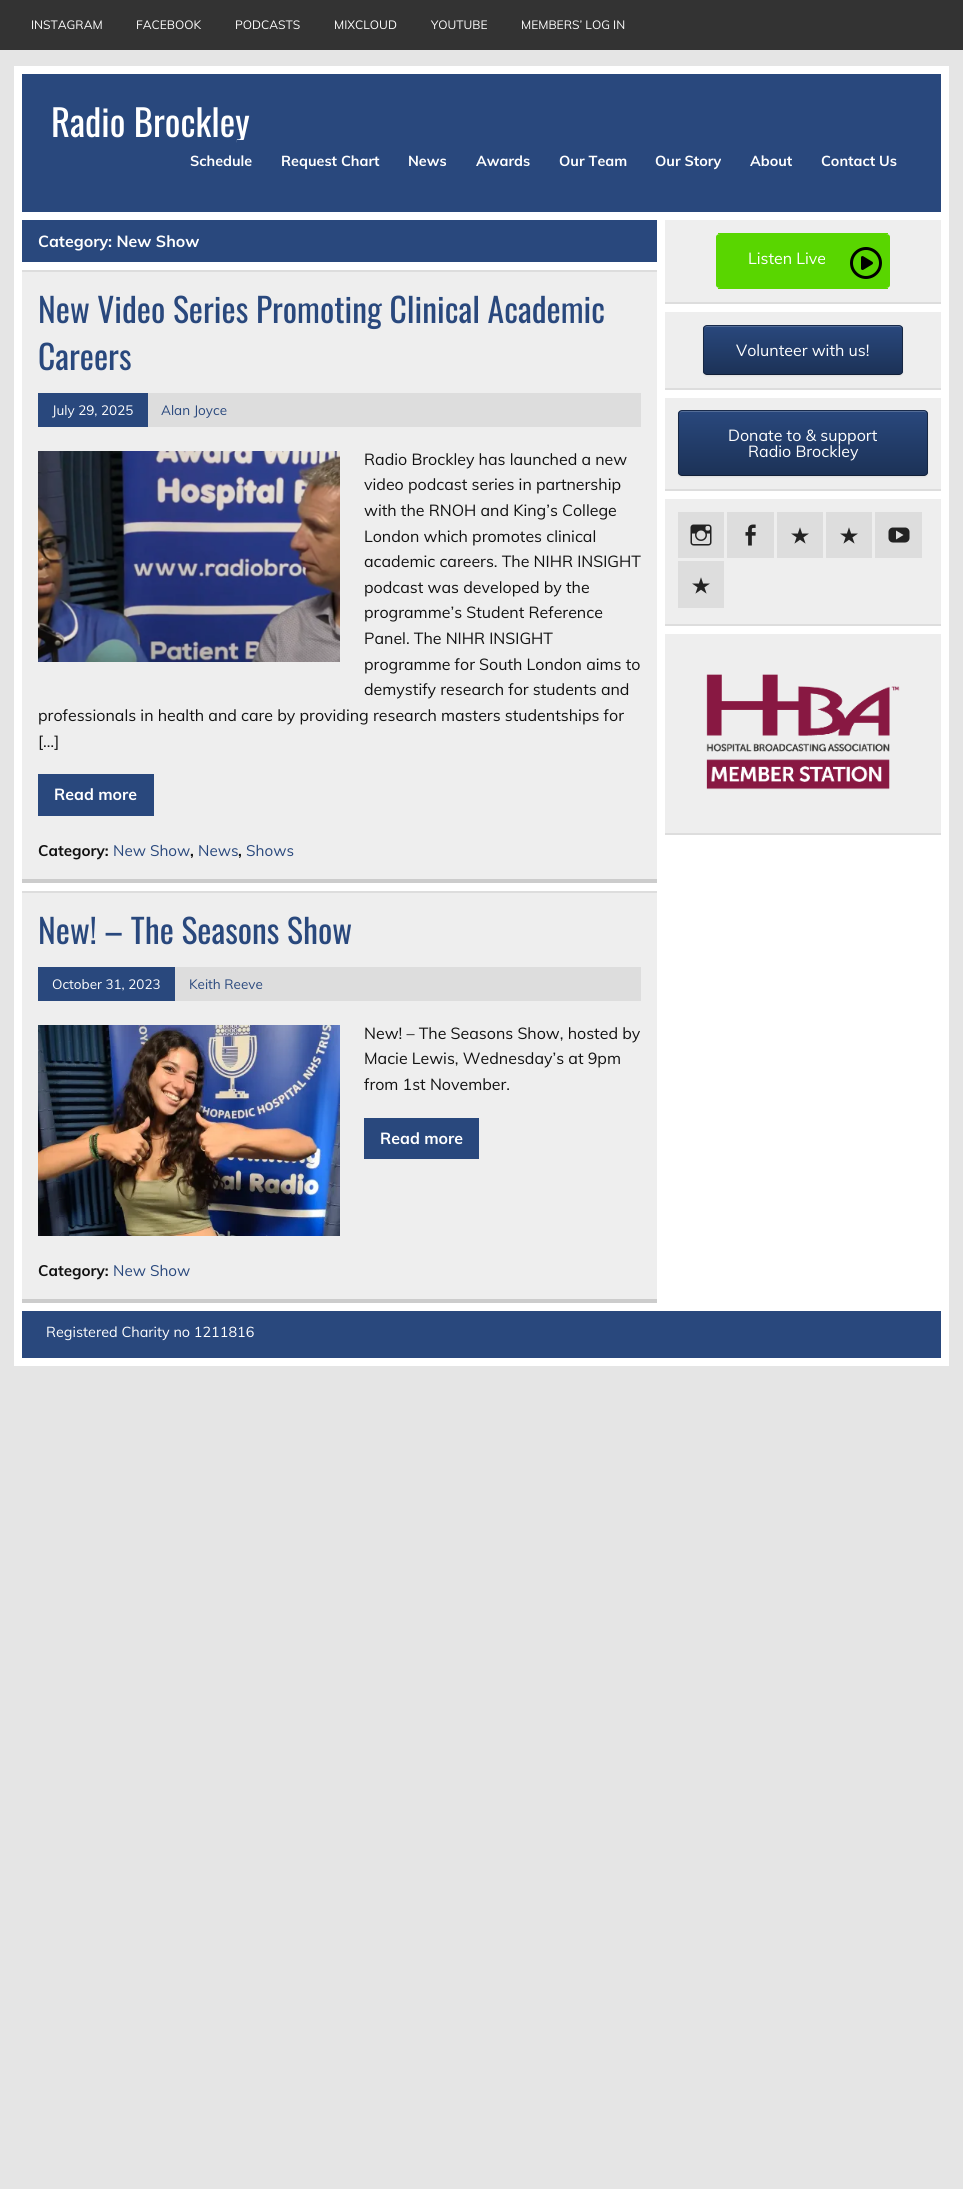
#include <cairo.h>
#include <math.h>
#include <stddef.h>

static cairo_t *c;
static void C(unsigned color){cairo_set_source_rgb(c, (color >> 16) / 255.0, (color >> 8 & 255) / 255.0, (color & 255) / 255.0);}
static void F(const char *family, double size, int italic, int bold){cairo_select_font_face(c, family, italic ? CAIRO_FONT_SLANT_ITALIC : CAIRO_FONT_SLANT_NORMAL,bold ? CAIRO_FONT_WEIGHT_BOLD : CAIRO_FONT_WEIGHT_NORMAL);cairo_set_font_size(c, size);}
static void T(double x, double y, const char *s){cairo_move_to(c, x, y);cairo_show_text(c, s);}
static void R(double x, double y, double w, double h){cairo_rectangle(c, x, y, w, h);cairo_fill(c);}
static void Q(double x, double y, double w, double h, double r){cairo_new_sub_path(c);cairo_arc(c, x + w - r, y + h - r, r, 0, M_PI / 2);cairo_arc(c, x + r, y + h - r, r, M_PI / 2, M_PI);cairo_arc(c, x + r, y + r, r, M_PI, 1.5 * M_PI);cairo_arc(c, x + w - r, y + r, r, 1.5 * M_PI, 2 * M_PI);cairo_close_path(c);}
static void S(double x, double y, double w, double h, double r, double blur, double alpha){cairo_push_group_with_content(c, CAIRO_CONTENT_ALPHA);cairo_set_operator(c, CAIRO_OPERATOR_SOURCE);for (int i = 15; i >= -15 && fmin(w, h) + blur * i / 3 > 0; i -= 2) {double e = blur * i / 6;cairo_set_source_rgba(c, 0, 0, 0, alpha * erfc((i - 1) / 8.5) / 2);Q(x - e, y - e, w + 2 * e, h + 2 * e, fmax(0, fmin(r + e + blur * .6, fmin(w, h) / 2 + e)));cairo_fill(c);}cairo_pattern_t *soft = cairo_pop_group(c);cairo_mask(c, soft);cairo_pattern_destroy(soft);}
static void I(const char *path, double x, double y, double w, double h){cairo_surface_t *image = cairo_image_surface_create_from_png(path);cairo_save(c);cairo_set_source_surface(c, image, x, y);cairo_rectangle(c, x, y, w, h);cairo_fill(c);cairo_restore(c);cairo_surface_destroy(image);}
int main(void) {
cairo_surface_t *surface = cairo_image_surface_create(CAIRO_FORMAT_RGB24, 963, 2189);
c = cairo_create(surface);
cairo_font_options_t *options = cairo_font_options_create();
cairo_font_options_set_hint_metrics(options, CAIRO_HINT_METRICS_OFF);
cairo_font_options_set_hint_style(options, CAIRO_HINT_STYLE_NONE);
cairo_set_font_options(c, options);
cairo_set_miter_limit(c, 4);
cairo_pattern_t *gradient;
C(0xe5e5e5);
cairo_paint(c);
C(0x333333);
R(0,0,963,50);
F("Muli",12,0,0);
C(0xffffff);
T(31,29,"INSTAGRAM");
T(136,29,"FACEBOOK");
T(235,29,"PODCASTS");
T(334,29,"MIXCLOUD");
T(431,29,"YOUTUBE");
T(521,29,"MEMBERS’ LOG IN");
R(14,66,935,1300);
C(0x29487d);
R(22,74,919,138);
F("Oswald",36.75,0,0);
C(0xffffff);
T(51,137,"Radio Brockley");
C(0x29487d);
R(237,140,7,3);
F("Muli",14.4,0,1);
C(0xffffff);
T(190,166,"Schedule");
T(281,166,"Request Chart");
T(408,166,"News");
T(476,166,"Awards");
T(559,166,"Our Team");
T(655,166,"Our Story");
T(750,166,"About");
T(821,166,"Contact Us");
C(0x29487d);
R(22,220,635,42);
F("Muli",16,0,1);
C(0xffffff);
T(38,247,"Category: New Show");
C(0xeeeeee);
R(22,272,635,607);
C(0xdddddd);
R(22,270,635,2);
C(0xcccccc);
R(22,879,635,4);
F("Oswald",33.6,0,0);
C(0x29487d);
T(38,323,"New Video Series Promoting Clinical Academic");
T(38,370,"Careers");
C(0xdddddd);
R(148,393,493,34);
C(0x29487d);
R(38,393,110,34);
F("Muli",13.5,0,0);
C(0xffffff);
T(52,415,"July 29, 2025");
C(0x29487d);
T(161,415,"Alan Joyce");
I("1.png",38,451,302,211);
F("Muli",16,0,0);
C(0x111111);
T(364,465,"Radio Brockley has launched a new");
T(364,490,"video podcast series in partnership");
T(364,516,"with the RNOH and King’s College");
T(364,542,"London which promotes clinical");
T(364,567,"academic careers. The NIHR INSIGHT");
T(364,593,"podcast was developed by the");
T(364,618,"programme’s Student Reference");
T(364,644,"Panel. The NIHR INSIGHT");
T(364,670,"programme for South London aims to");
T(364,695,"demystify research for students and");
T(38,721,"professionals in health and care by providing research masters studentships for");
T(38,747,"[…]");
C(0x29487d);
R(38,774,116,42);
F("Muli",16,0,1);
C(0xffffff);
T(54,800,"Read more");
F("Muli",15.25,0,1);
C(0x111111);
T(38,856,"Category:");
F("Muli",15.25,0,0);
C(0x29487d);
T(113,856,"New Show");
F("Muli",15.25,0,1);
C(0x111111);
T(190,856,",");
F("Muli",15.25,0,0);
C(0x29487d);
T(198,856,"News");
F("Muli",15.25,0,1);
C(0x111111);
T(238,856,",");
F("Muli",15.25,0,0);
C(0x29487d);
T(246,856,"Shows");
C(0xeeeeee);
R(22,893,635,406);
C(0xdddddd);
R(22,891,635,2);
C(0xcccccc);
R(22,1299,635,4);
F("Oswald",33.6,0,0);
C(0x29487d);
T(38,944,"New! – The Seasons Show");
C(0xdddddd);
R(175,967,466,34);
C(0x29487d);
R(38,967,137,34);
F("Muli",13.5,0,0);
C(0xffffff);
T(52,989,"October 31, 2023");
C(0x29487d);
T(189,989,"Keith Reeve");
I("2.png",38,1025,302,211);
F("Muli",16,0,0);
C(0x111111);
T(364,1039,"New! – The Seasons Show, hosted by");
T(364,1064,"Macie Lewis, Wednesday’s at 9pm");
T(364,1090,"from 1st November.");
C(0x29487d);
R(364,1118,115,41);
F("Muli",16,0,1);
C(0xffffff);
T(380,1144,"Read more");
F("Muli",15.25,0,1);
C(0x111111);
T(38,1276,"Category:");
F("Muli",15.25,0,0);
C(0x29487d);
T(113,1276,"New Show");
C(0xeeeeee);
R(665,220,276,82);
C(0xdddddd);
R(665,302,276,2);
C(0x59d600);
cairo_new_path(c);
cairo_move_to(c,720,234);
cairo_line_to(c,886,234);
cairo_curve_to(c,888,234,890,235,890,237);
cairo_line_to(c,890,285);
cairo_curve_to(c,890,287,888,288,886,288);
cairo_line_to(c,720,288);
cairo_curve_to(c,718,288,716,287,716,285);
cairo_line_to(c,716,237);
cairo_curve_to(c,716,235,718,234,720,234);
cairo_close_path(c);
cairo_fill(c);
R(718,233,170,1);
R(718,288,170,1);
F("Muli",16,0,0);
C(0xffffff);
T(748,264,"Listen Live");
I("3.png",850,247,32,32);
C(0xeeeeee);
R(665,312,276,76);
C(0xdddddd);
R(665,388,276,2);
C(0x000000);
S(703,326,200,50,4,1,.07);
cairo_save(c);
Q(703,325,200,50,4);
cairo_clip(c);
gradient = cairo_pattern_create_linear(704,374,704,326);
cairo_pattern_add_color_stop_rgba(gradient,0,0.11,0.196,0.341,1);
cairo_pattern_add_color_stop_rgba(gradient,1,0.161,0.282,0.49,1);
cairo_set_source(c,gradient);
cairo_pattern_destroy(gradient);
R(703,326,200,48);
cairo_restore(c);
C(0x546d97);
cairo_new_path(c);
cairo_move_to(c,707,327);
cairo_line_to(c,899,327);
cairo_curve_to(c,901,327,902,328,902,330);
cairo_curve_to(c,902,328,901,326,899,326);
cairo_line_to(c,707,326);
cairo_curve_to(c,705,326,704,328,704,330);
cairo_curve_to(c,704,328,705,327,707,327);
cairo_close_path(c);
cairo_fill(c);
cairo_new_path(c);
cairo_move_to(c,704.5,326.5);
cairo_curve_to(c,705,326,706,325.5,707,325.5);
cairo_line_to(c,899,325.5);
cairo_curve_to(c,900,325.5,901,326,901.5,326.5);
C(0x192b4b);
cairo_set_line_width(c,1);
cairo_stroke(c);
cairo_new_path(c);
cairo_move_to(c,901.5,326.5);
cairo_curve_to(c,902,327,902.5,328,902.5,329);
cairo_line_to(c,902.5,371);
cairo_curve_to(c,902.5,372,902,373,901.5,373.5);
C(0x162743);
cairo_stroke(c);
cairo_new_path(c);
cairo_move_to(c,901.5,373.5);
cairo_curve_to(c,901,374,900,374.5,899,374.5);
cairo_line_to(c,707,374.5);
cairo_curve_to(c,706,374.5,705,374,704.5,373.5);
C(0x122038);
cairo_stroke(c);
cairo_new_path(c);
cairo_move_to(c,704.5,373.5);
cairo_curve_to(c,704,373,703.5,372,703.5,371);
cairo_line_to(c,703.5,329);
cairo_curve_to(c,703.5,328,704,327,704.5,326.5);
C(0x162743);
cairo_stroke(c);
C(0xffffff);
T(736,356,"Volunteer with us!");
C(0xeeeeee);
R(665,398,276,91);
C(0xdddddd);
R(665,489,276,2);
C(0x000000);
S(678,411,250,66,4,1,.07);
cairo_save(c);
Q(678,410,250,66,4);
cairo_clip(c);
gradient = cairo_pattern_create_linear(679,475,679,411);
cairo_pattern_add_color_stop_rgba(gradient,0,0.11,0.196,0.341,1);
cairo_pattern_add_color_stop_rgba(gradient,1,0.161,0.282,0.49,1);
cairo_set_source(c,gradient);
cairo_pattern_destroy(gradient);
R(678,411,250,64);
cairo_restore(c);
C(0x546d97);
cairo_new_path(c);
cairo_move_to(c,682,412);
cairo_line_to(c,924,412);
cairo_curve_to(c,926,412,927,413,927,415);
cairo_curve_to(c,927,413,926,411,924,411);
cairo_line_to(c,682,411);
cairo_curve_to(c,680,411,679,413,679,415);
cairo_curve_to(c,679,413,680,412,682,412);
cairo_close_path(c);
cairo_fill(c);
cairo_new_path(c);
cairo_move_to(c,679.5,411.5);
cairo_curve_to(c,680,411,681,410.5,682,410.5);
cairo_line_to(c,924,410.5);
cairo_curve_to(c,925,410.5,926,411,926.5,411.5);
C(0x192b4b);
cairo_stroke(c);
cairo_new_path(c);
cairo_move_to(c,926.5,411.5);
cairo_line_to(c,927.5,413.5);
cairo_line_to(c,927.5,472.5);
cairo_line_to(c,926.5,474.5);
C(0x162743);
cairo_stroke(c);
cairo_new_path(c);
cairo_move_to(c,926.5,474.5);
cairo_curve_to(c,926,475,925,475.5,924,475.5);
cairo_line_to(c,682,475.5);
cairo_curve_to(c,681,475.5,680,475,679.5,474.5);
C(0x122038);
cairo_stroke(c);
cairo_new_path(c);
cairo_move_to(c,679.5,474.5);
cairo_line_to(c,678.5,472.5);
cairo_line_to(c,678.5,413.5);
cairo_line_to(c,679.5,411.5);
C(0x162743);
cairo_stroke(c);
C(0xffffff);
T(728,441,"Donate to & support");
T(748,457,"Radio Brockley");
C(0xeeeeee);
R(665,499,276,125);
C(0xdddddd);
R(665,624,276,2);
R(678,512,46,46);
I("4.png",690,524,22,22);
R(727,512,47,46);
I("5.png",745,524,11,22);
R(777,512,46,46);
I("6.png",791,527,18,17);
R(826,512,46,46);
I("6.png",840,527,18,17);
R(875,512,47,46);
I("7.png",888,527,22,16);
R(678,561,46,47);
I("6.png",692,577,18,17);
C(0xeeeeee);
R(665,634,276,199);
C(0xdddddd);
R(665,833,276,2);
I("8.png",706,674,194,116);
C(0x29487d);
R(22,1311,919,47);
F("Muli",14.4,0,0);
C(0xffffff);
T(46,1337,"Registered Charity no 1211816");
cairo_surface_write_to_png(surface, "o.png");
cairo_font_options_destroy(options);
cairo_destroy(c);
cairo_surface_destroy(surface);
return 0;
}
